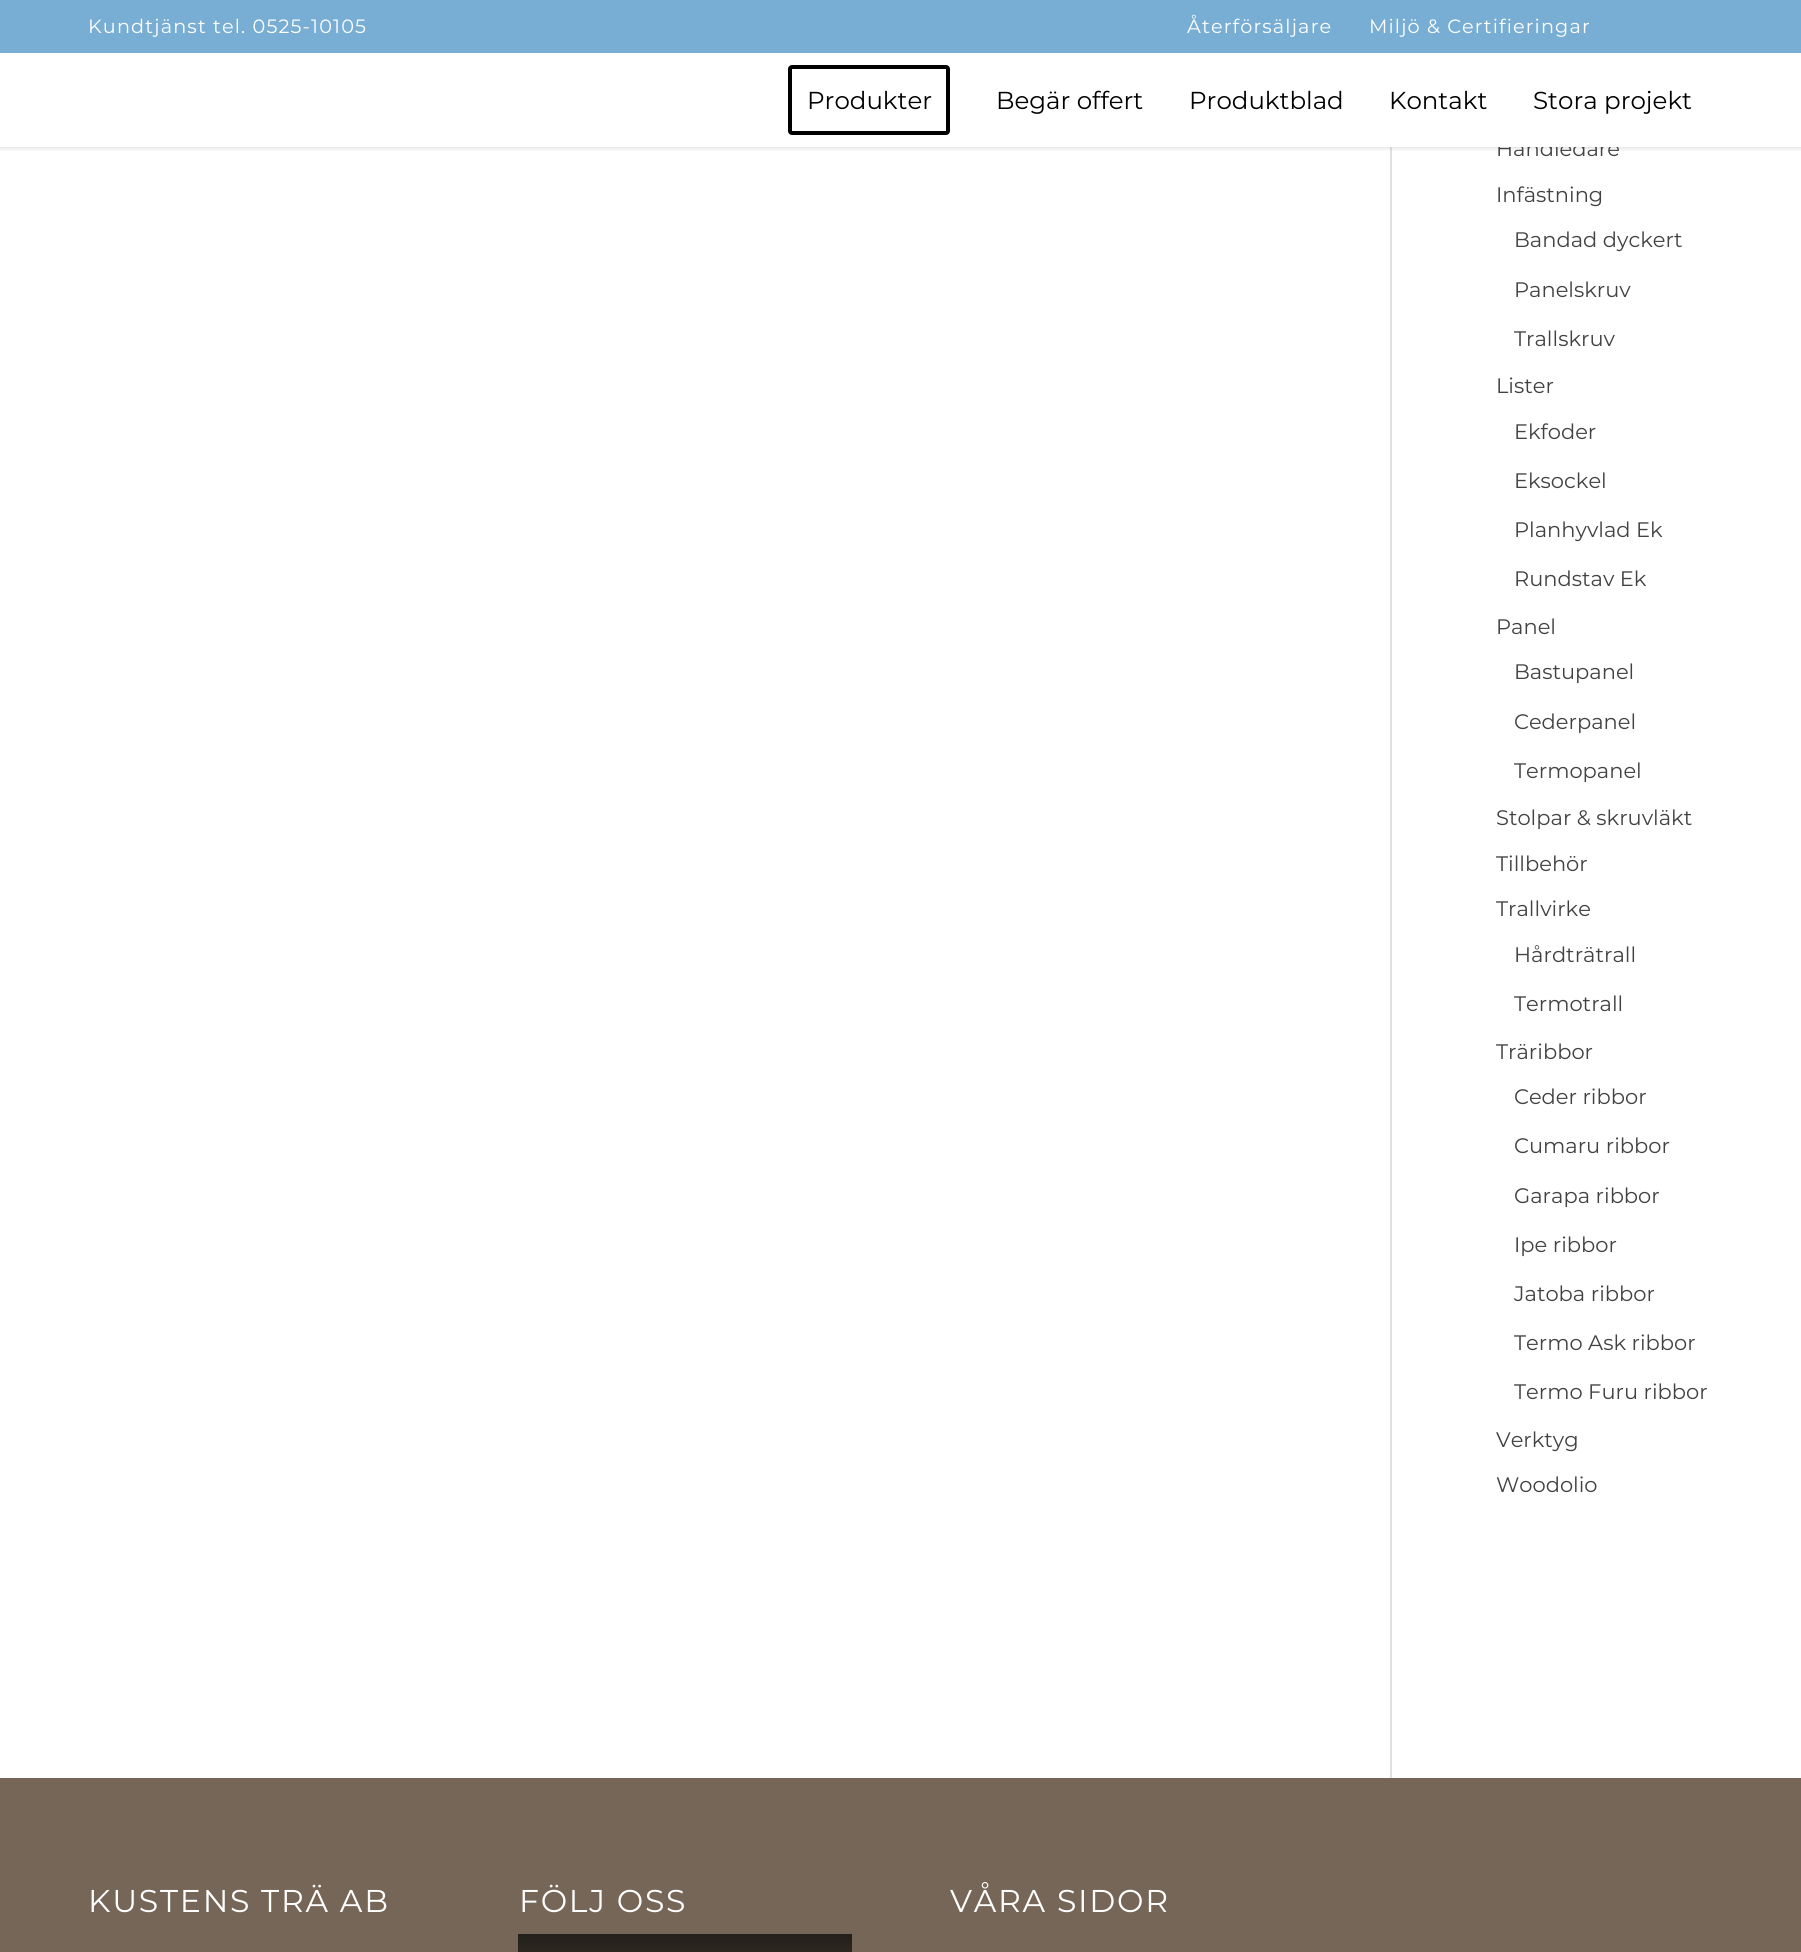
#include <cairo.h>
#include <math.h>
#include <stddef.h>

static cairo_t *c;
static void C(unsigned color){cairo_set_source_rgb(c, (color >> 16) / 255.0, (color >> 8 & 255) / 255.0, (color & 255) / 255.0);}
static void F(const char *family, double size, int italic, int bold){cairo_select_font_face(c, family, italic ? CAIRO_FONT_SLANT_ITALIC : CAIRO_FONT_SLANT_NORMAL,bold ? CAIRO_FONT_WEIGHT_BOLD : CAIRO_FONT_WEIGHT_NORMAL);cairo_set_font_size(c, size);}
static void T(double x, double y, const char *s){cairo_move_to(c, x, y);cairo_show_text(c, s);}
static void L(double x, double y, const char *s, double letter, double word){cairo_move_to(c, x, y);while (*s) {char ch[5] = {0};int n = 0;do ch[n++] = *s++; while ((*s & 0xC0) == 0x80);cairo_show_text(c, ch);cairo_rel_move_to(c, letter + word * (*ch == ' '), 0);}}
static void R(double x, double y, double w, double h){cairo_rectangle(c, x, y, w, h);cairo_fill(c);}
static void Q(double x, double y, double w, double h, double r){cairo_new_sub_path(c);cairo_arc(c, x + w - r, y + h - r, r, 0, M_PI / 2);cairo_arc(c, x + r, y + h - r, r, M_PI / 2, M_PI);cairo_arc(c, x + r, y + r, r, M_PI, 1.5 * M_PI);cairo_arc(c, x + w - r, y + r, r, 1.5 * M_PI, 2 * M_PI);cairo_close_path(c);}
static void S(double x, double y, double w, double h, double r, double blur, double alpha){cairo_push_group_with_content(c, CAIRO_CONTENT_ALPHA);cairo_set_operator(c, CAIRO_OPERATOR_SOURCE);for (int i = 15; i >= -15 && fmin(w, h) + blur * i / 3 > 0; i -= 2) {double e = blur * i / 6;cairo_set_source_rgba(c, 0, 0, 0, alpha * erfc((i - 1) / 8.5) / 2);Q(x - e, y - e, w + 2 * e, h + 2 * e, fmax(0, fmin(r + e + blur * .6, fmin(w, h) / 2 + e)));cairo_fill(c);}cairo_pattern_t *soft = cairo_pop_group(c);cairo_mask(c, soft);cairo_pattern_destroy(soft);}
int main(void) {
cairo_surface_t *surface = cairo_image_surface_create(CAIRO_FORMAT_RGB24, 1801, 1952);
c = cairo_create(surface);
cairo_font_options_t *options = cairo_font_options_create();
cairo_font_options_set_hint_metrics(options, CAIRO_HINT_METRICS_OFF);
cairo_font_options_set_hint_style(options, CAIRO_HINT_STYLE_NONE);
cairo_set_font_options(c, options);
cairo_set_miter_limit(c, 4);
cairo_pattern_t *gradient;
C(0xffffff);
cairo_paint(c);
C(0xe1e1e1);
R(1390,147,2,1631);
C(0x000000);
S(-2,-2,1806,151,0,2,.1);
C(0x79aed4);
R(0,0,1801,53);
F("Montserrat Thin",19.25,0,0);
C(0xffffff);
L(88,33,"Kundtjänst tel. 0525-10105",1.15,0);
L(1187,33,"Återförsäljare",1.15,0);
L(1369,33,"Miljö & Certifieringar",1.15,0);
F("Montserrat Thin",21,0,0);
C(0x424242);
T(1496,156,"Handledare");
C(0xffffff);
R(0,53,1801,94);
Q(790,67,158,66,2);
C(0x000000);
cairo_set_line_width(c,4);
cairo_stroke(c);
F("Montserrat Thin",24.5,0,0);
T(807,109,"Produkter");
T(996,109,"Begär offert");
T(1189,109,"Produktblad");
T(1389,109,"Kontakt");
T(1533,109,"Stora projekt");
F("Montserrat Thin",21,0,0);
C(0x424242);
T(1496,202,"Infästning");
T(1514,247,"Bandad dyckert");
T(1514,297,"Panelskruv");
T(1514,346,"Trallskruv");
T(1496,393,"Lister");
T(1514,439,"Ekfoder");
T(1514,488,"Eksockel");
T(1514,537,"Planhyvlad Ek");
T(1514,586,"Rundstav Ek");
T(1496,634,"Panel");
T(1514,679,"Bastupanel");
T(1514,729,"Cederpanel");
T(1514,778,"Termopanel");
T(1496,825,"Stolpar & skruvläkt");
T(1496,871,"Tillbehör");
T(1496,916,"Trallvirke");
T(1514,962,"Hårdträtrall");
T(1514,1011,"Termotrall");
T(1496,1059,"Träribbor");
T(1514,1104,"Ceder ribbor");
T(1514,1153,"Cumaru ribbor");
T(1514,1203,"Garapa ribbor");
T(1514,1252,"Ipe ribbor");
T(1514,1301,"Jatoba ribbor");
T(1514,1350,"Termo Ask ribbor");
T(1514,1399,"Termo Furu ribbor");
T(1496,1447,"Verktyg");
T(1496,1492,"Woodolio");
C(0x766657);
R(0,1778,1801,174);
F("Montserrat Thin",31.5,0,0);
C(0xffffff);
L(88,1912,"KUSTENS TRÄ AB",1.75,0);
L(519,1912,"FÖLJ OSS",1.75,0);
gradient = cairo_pattern_create_linear(685,1934,685,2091);
cairo_pattern_add_color_stop_rgba(gradient,0,0.137,0.122,0.102,1);
cairo_pattern_add_color_stop_rgba(gradient,1,0.463,0.4,0.341,1);
cairo_set_source(c,gradient);
cairo_pattern_destroy(gradient);
R(518,1934,334,18);
C(0xffffff);
L(950,1912,"VÅRA SIDOR",1.75,0);
cairo_surface_write_to_png(surface, "o.png");
cairo_font_options_destroy(options);
cairo_destroy(c);
cairo_surface_destroy(surface);
return 0;
}
